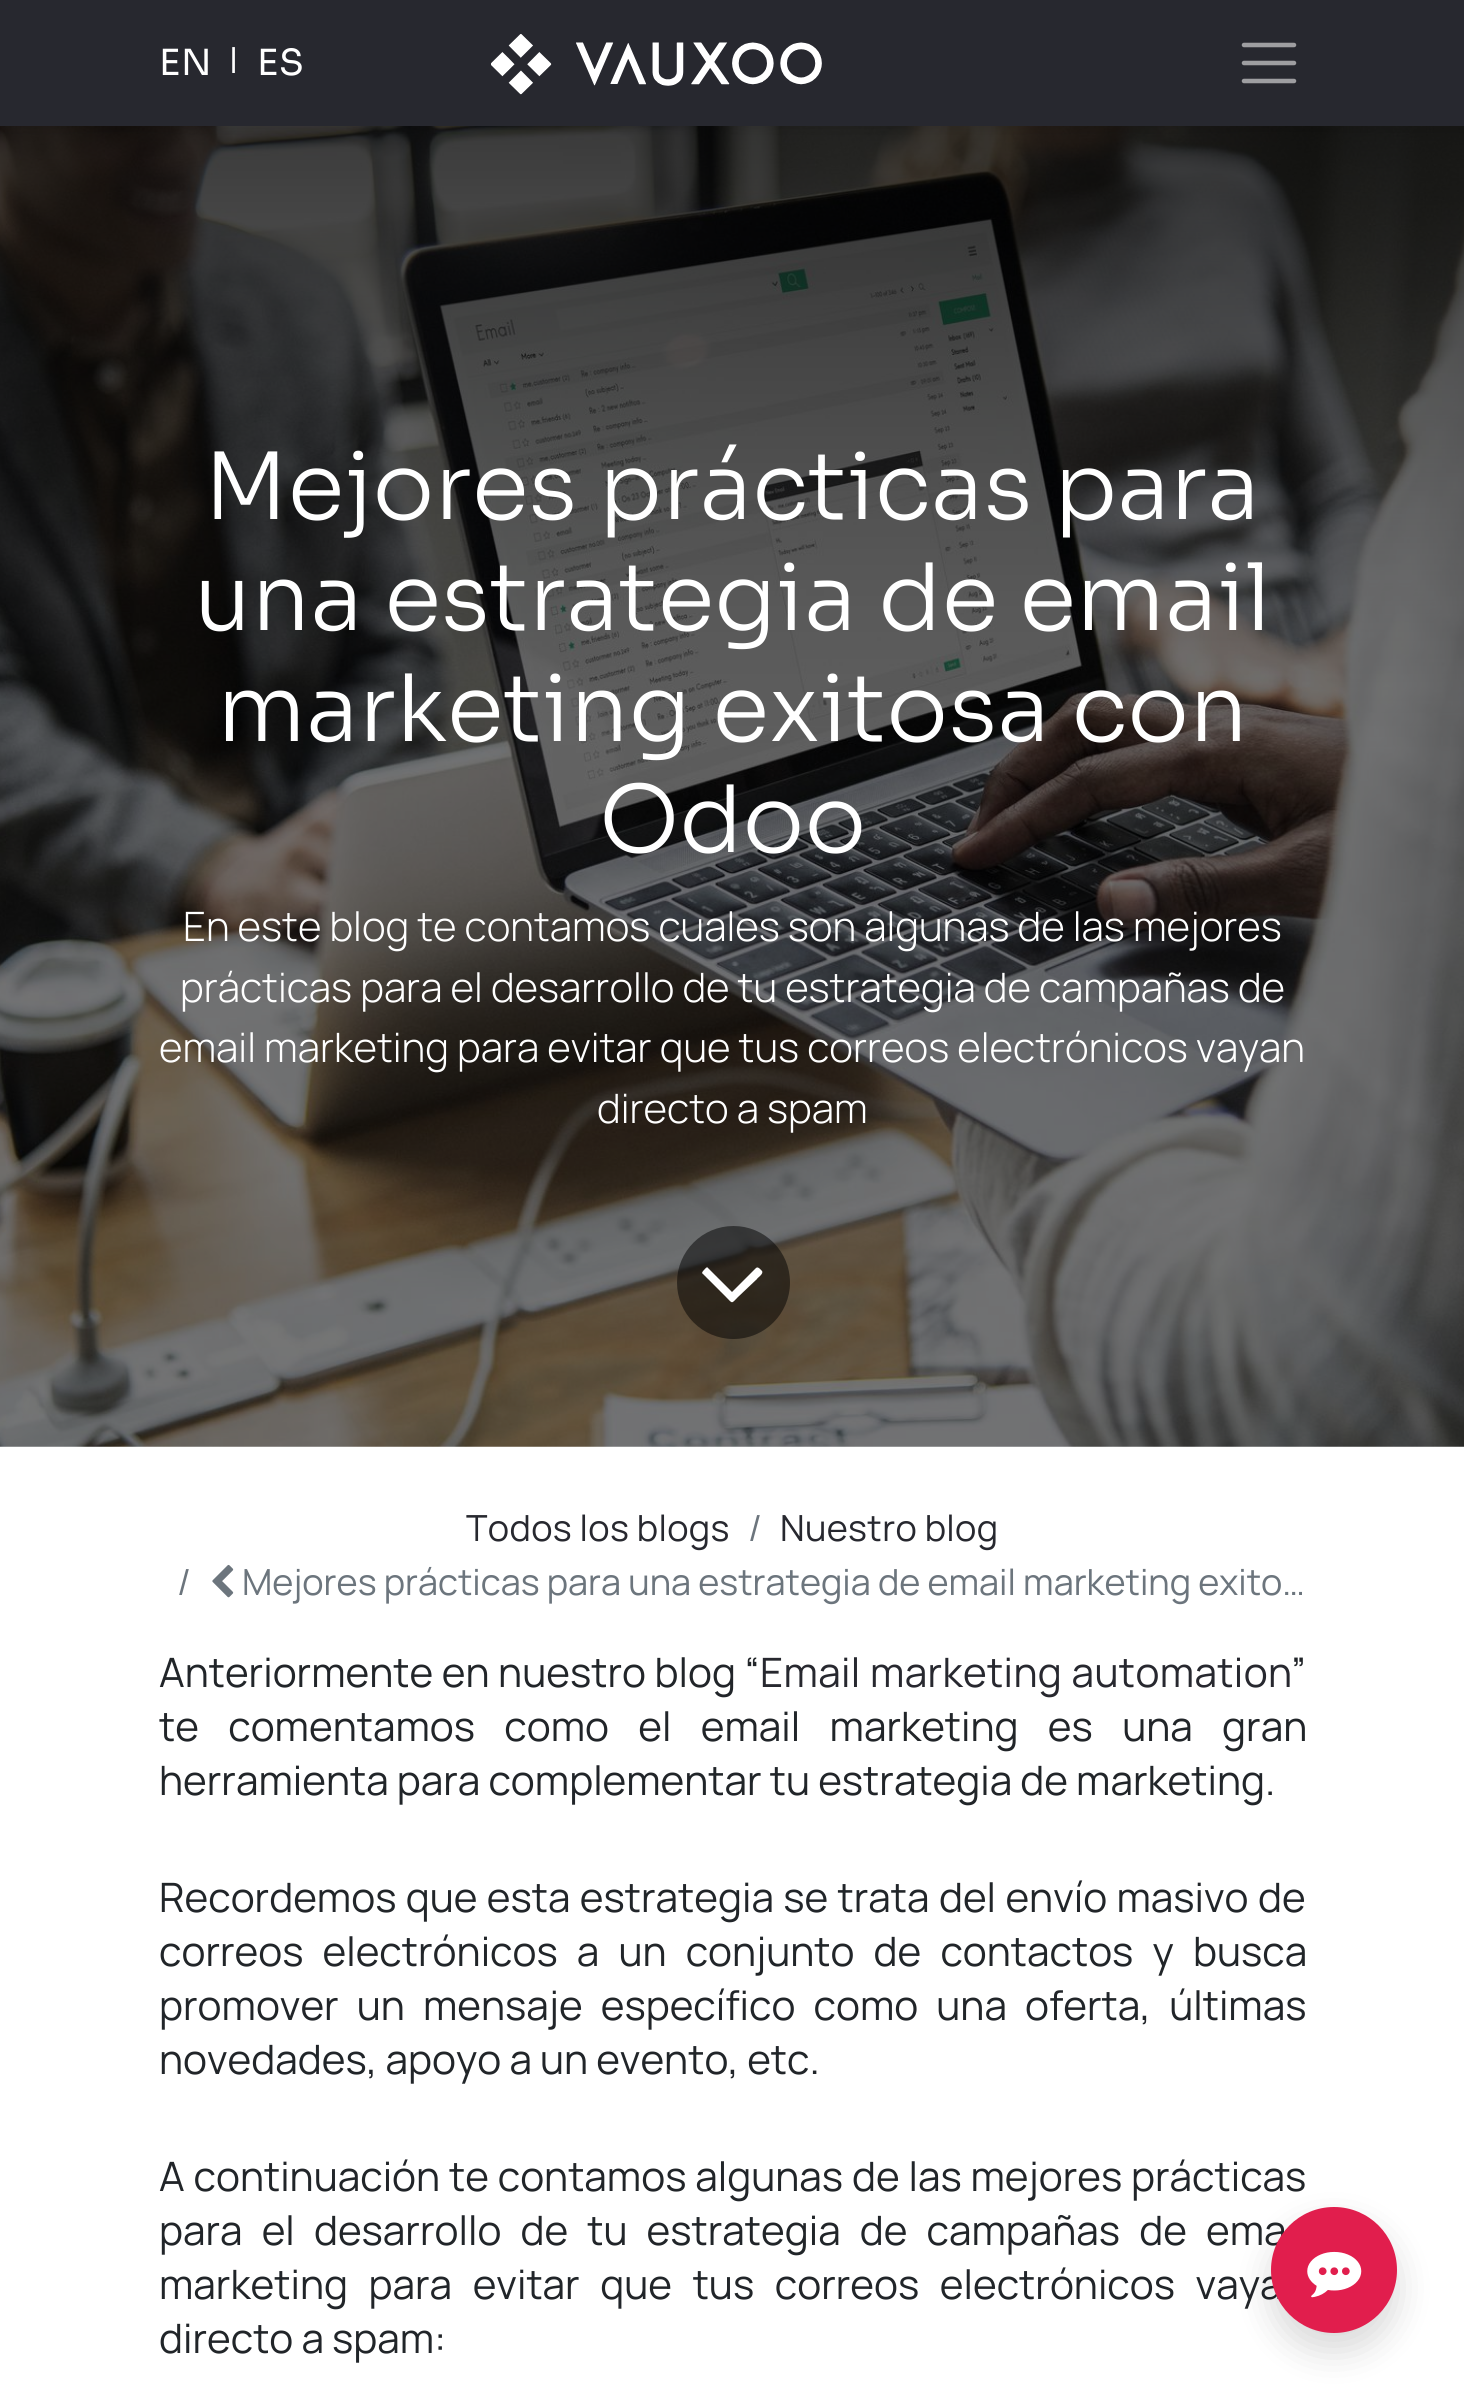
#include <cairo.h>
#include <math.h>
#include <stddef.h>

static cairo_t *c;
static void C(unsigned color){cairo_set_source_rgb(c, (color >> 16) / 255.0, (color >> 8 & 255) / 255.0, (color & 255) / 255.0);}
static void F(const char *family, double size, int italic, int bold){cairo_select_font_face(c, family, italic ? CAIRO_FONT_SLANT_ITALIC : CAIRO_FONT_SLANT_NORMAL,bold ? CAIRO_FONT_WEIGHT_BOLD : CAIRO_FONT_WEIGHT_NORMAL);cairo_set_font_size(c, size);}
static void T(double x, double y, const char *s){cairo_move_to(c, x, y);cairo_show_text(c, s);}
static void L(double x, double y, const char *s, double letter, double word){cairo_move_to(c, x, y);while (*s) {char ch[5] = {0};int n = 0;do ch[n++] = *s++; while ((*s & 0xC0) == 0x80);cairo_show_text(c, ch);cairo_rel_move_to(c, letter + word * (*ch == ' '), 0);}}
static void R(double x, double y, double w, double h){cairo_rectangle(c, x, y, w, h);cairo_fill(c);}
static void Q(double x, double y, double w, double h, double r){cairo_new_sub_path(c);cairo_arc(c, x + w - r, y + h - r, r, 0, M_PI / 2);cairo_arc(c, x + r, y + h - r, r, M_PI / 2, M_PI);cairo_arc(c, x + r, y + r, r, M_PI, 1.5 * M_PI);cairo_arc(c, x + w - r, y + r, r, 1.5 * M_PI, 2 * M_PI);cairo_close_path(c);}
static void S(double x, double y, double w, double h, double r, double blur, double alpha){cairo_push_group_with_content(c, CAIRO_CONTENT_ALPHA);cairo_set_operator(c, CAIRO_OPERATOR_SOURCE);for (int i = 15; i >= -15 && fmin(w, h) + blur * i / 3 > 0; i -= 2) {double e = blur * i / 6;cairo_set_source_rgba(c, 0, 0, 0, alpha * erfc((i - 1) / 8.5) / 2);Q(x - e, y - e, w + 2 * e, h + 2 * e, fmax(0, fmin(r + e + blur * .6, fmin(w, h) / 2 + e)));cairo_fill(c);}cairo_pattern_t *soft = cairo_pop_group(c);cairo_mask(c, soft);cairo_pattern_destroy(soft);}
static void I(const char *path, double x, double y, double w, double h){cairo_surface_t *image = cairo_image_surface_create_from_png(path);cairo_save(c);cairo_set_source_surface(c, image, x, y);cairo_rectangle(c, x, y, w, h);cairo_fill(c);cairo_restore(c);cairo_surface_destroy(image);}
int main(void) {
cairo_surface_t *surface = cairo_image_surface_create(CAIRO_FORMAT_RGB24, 1464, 2400);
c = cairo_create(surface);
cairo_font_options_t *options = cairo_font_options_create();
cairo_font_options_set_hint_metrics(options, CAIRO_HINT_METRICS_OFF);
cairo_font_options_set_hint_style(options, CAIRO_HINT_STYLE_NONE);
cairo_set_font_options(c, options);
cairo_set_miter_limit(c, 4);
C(0xffffff);
cairo_paint(c);
I("2.png",0,126,1464,1321);
C(0x000000);
S(0,5,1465,126,0,4.5,.07);
C(0x27282f);
R(0,0,1464,126);
F("Sora",36,0,0);
C(0xffffff);
L(159,75,"EN",.35,0);
F("Manrope",36,0,0);
T(229,73,"|");
F("Sora",36,0,0);
L(257,75,"ES",.35,0);
I("1.png",491,34,331,61);
cairo_new_path(c);
cairo_move_to(c,1244,45);
cairo_line_to(c,1294,45);
cairo_move_to(c,1244,63);
cairo_line_to(c,1294,63);
cairo_move_to(c,1244,81);
cairo_line_to(c,1294,81);
C(0x9e9ea1);
cairo_set_line_width(c,4.5);
cairo_set_line_cap(c,CAIRO_LINE_CAP_ROUND);
cairo_stroke(c);
F("Sora Light",92.6,0,0);
C(0xffffff);
T(204,519,"Mejores prácticas para");
T(194,630,"una estrategia de email");
T(217,741,"marketing exitosa con");
T(599,852,"Odoo");
F("Manrope Light",40.5,0,0);
T(183,941,"En este blog te contamos cuales son algunas de las mejores");
T(180,1002,"prácticas para el desarrollo de tu estrategia de campañas de");
T(159,1062,"email marketing para evitar que tus correos electrónicos vayan");
T(597,1123,"directo a spam");
cairo_set_source_rgba(c,0,0,0,0.5);
cairo_new_path(c);
cairo_arc(c,733.5,1282.5,56.5,0,2 * M_PI);
cairo_fill(c);
C(0xffffff);
cairo_new_path(c);
cairo_move_to(c,762,1271);
cairo_curve_to(c,764,1274,757,1278,757,1279);
cairo_line_to(c,738,1297);
cairo_curve_to(c,731,1304,733,1304,726,1297);
cairo_line_to(c,703,1274);
cairo_curve_to(c,701,1273,703,1271,704,1270);
cairo_curve_to(c,705,1269,707,1266,708,1268);
cairo_line_to(c,732,1292);
cairo_line_to(c,756,1268);
cairo_curve_to(c,758,1266,761,1270,762,1271);
cairo_close_path(c);
cairo_fill(c);
F("Manrope",36,0,0);
C(0x27282f);
L(466,1541,"Todos los blogs",.35,0);
C(0x6c757d);
T(748,1541,"/");
C(0x27282f);
L(780,1541,"Nuestro blog",.35,0);
C(0x6c757d);
T(177,1595,"/");
I("3.png",212,1564,22,34);
T(242,1595,"Mejores prácticas para una estrategia de email marketing exito…");
F("Manrope",40.5,0,0);
C(0x212529);
L(159,1687,"Anteriormente en nuestro blog “",0,.5);
C(0x27282f);
L(760,1687,"Email marketing automation",.35,1);
C(0x212529);
T(1291,1687,"”");
L(159,1741,"te comentamos como el email marketing es una gran",0,21.25);
T(159,1795,"herramienta para complementar tu estrategia de marketing.");
L(159,1912,"Recordemos que esta estrategia se trata del envío masivo de",0,1.25);
L(159,1966,"correos electrónicos a un conjunto de contactos y busca",0,11);
L(159,2020,"promover un mensaje específico como una oferta, últimas",0,10);
T(159,2074,"novedades, apoyo a un evento, etc.");
L(159,2191,"A continuación te contamos algunas de las mejores prácticas",0,.75);
L(159,2245,"para el desarrollo de tu estrategia de campañas de ema",0,11);
L(159,2299,"marketing para evitar que tus correos electrónicos vaya",0,12.5);
T(159,2353,"directo a spam:");
C(0x000000);
S(1271,2225,126,126,63,18,.15);
C(0xe11e4d);
cairo_arc(c,1334,2270,63,0,2 * M_PI);
cairo_fill(c);
I("4.png",1307,2251,55,47);
cairo_surface_write_to_png(surface, "o.png");
cairo_font_options_destroy(options);
cairo_destroy(c);
cairo_surface_destroy(surface);
return 0;
}
